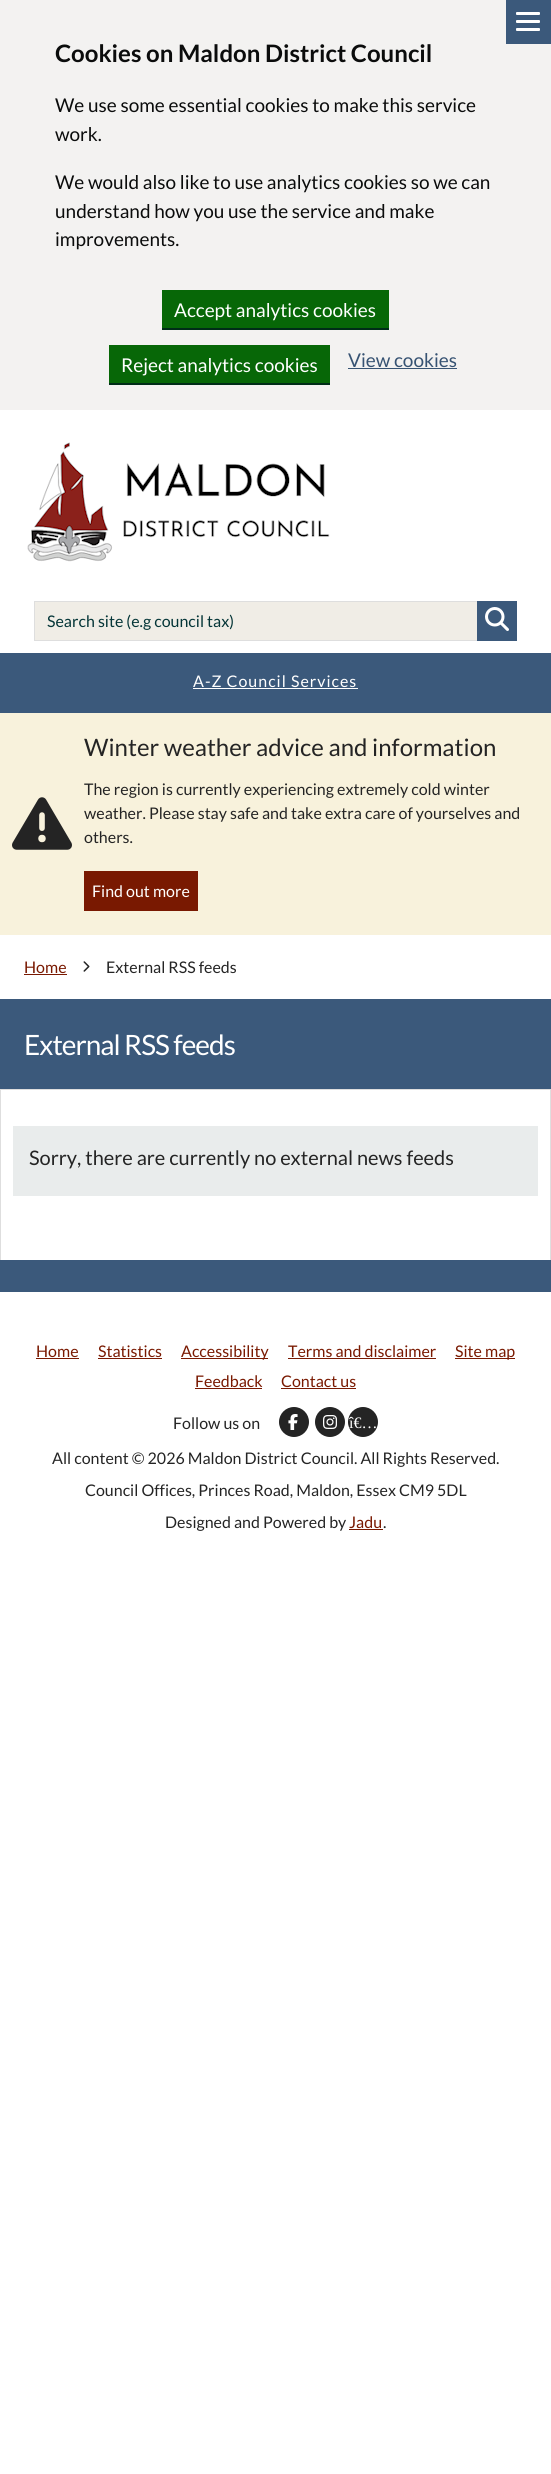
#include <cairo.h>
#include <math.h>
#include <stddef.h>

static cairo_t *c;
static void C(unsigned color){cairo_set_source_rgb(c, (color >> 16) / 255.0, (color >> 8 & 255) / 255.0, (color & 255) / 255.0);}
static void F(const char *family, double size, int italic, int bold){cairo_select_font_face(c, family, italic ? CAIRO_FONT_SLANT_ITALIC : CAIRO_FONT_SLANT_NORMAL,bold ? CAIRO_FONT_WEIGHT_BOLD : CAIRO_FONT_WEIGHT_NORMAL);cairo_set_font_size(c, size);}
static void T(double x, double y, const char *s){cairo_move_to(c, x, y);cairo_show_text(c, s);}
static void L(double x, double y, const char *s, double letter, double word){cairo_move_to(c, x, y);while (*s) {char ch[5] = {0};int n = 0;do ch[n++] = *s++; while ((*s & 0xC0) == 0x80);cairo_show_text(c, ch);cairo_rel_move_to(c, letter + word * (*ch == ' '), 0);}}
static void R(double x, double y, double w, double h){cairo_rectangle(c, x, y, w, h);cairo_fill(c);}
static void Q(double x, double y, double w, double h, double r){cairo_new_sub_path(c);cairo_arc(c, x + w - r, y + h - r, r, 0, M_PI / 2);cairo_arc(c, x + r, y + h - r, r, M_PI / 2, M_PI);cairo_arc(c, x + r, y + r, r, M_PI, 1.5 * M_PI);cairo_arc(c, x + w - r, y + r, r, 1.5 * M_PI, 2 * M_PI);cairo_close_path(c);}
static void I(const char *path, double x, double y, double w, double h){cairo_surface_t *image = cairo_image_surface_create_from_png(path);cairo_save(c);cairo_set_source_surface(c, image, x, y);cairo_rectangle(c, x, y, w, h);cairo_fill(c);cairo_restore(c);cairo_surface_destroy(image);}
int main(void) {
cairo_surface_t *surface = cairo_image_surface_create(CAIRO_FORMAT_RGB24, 551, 2474);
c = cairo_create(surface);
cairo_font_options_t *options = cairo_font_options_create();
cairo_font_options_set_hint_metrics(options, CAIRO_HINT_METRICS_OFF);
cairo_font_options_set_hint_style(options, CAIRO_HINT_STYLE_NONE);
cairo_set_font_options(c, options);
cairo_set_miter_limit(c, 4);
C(0xffffff);
cairo_paint(c);
C(0xf3f2f1);
R(0,0,551,410);
F("Lato",24,0,1);
C(0x0b0c0c);
T(55,62,"Cookies on Maldon District Council");
F("Lato",19,0,0);
T(55,112,"We use some essential cookies to make this service");
T(55,141,"work.");
T(55,189,"We would also like to use analytics cookies so we can");
T(55,218,"understand how you use the service and make");
T(55,246,"improvements.");
C(0x002d18);
R(162,328,227,2);
C(0x076707);
R(162,290,227,38);
C(0xffffff);
T(174,317,"Accept analytics cookies");
C(0x002d18);
R(109,383,221,2);
C(0x076707);
R(109,345,221,38);
C(0xffffff);
T(121,372,"Reject analytics cookies");
C(0x375373);
T(348,367,"View cookies");
R(348,368,109,1);
I("1.png",27,442,303,120);
C(0x3b597b);
R(506,0,45,44);
C(0xffffff);
Q(516,20,24,3,1);
cairo_fill(c);
Q(516,12,24,3,1);
cairo_fill(c);
Q(516,28,24,3,1);
cairo_fill(c);
C(0xf0ede6);
R(35,602,442,38);
cairo_rectangle(c,34.5,601.5,447,39);
C(0xdedede);
cairo_set_line_width(c,1);
cairo_stroke(c);
F("Lato",16,0,0);
C(0x043537);
T(47,627,"Search site (e.g council tax)");
C(0x3b597b);
R(477,601,40,40);
I("2.png",485,607,24,24);
R(0,653,551,60);
C(0xffffff);
L(193,687,"A-Z Council Services",1,0);
R(193,688,165,1);
C(0xf8f2dc);
R(0,713,551,222);
I("3.png",12,797,60,53);
F("Lato",24,0,0);
C(0x242424);
T(84,756,"Winter weather advice and information");
F("Lato",16,0,0);
T(84,795,"The region is currently experiencing extremely cold winter");
T(84,819,"weather. Please stay safe and take extra care of yourselves and");
T(84,843,"others.");
C(0x791901);
R(84,871,114,40);
C(0xffffff);
T(92,897,"Find out more");
C(0x791901);
T(24,973,"Home");
R(24,974,43,1);
I("4.png",83,961,7,11);
C(0x242424);
T(106,973,"External RSS feeds");
C(0x3b597b);
R(0,999,551,90);
F("Lato",28,0,0);
C(0xffffff);
L(24,1055,"External RSS feeds",-1,0);
C(0xdedede);
R(0,1089,551,1);
R(550,1089,1,171);
R(0,1089,1,171);
C(0xe9ecec);
R(13,1126,525,70);
F("Lato",20,0,0);
C(0x242424);
T(29,1165,"Sorry, there are currently no external news feeds");
C(0x3b597b);
R(0,1260,551,32);
F("Lato",16,0,0);
C(0x791901);
T(36,1357,"Home");
R(36,1358,43,1);
T(98,1357,"Statistics");
R(98,1358,64,1);
R(181,1358,87,1);
T(181,1357,"Accessibility");
T(288,1357,"Terms and disclaimer");
R(288,1358,148,1);
R(455,1358,60,1);
T(455,1357,"Site map");
T(195,1387,"Feedback");
R(195,1388,67,1);
T(281,1387,"Contact us");
R(281,1388,75,1);
C(0x242424);
T(173,1429,"Follow us on");
cairo_new_path(c);
cairo_arc(c,294,1422,15,0,2 * M_PI);
cairo_fill(c);
I("5.png",288,1414,10,16);
cairo_arc(c,330,1422,15,0,2 * M_PI);
cairo_fill(c);
I("6.png",323,1415,14,14);
cairo_arc(c,363,1422,15,0,2 * M_PI);
cairo_fill(c);
F("Liberation Serif",16,0,0);
C(0xffffff);
T(349,1428,"î€…");
F("Lato",16,0,0);
C(0x242424);
T(52,1464,"All content © 2026 Maldon District Council. All Rights Reserved.");
T(85,1496,"Council Offices, Princes Road, Maldon, Essex CM9 5DL");
T(165,1528,"Designed and Powered by");
C(0x791901);
T(349,1528,"Jadu");
C(0x242424);
T(383,1528,".");
C(0x791901);
R(349,1529,34,1);
cairo_surface_write_to_png(surface, "o.png");
cairo_font_options_destroy(options);
cairo_destroy(c);
cairo_surface_destroy(surface);
return 0;
}
